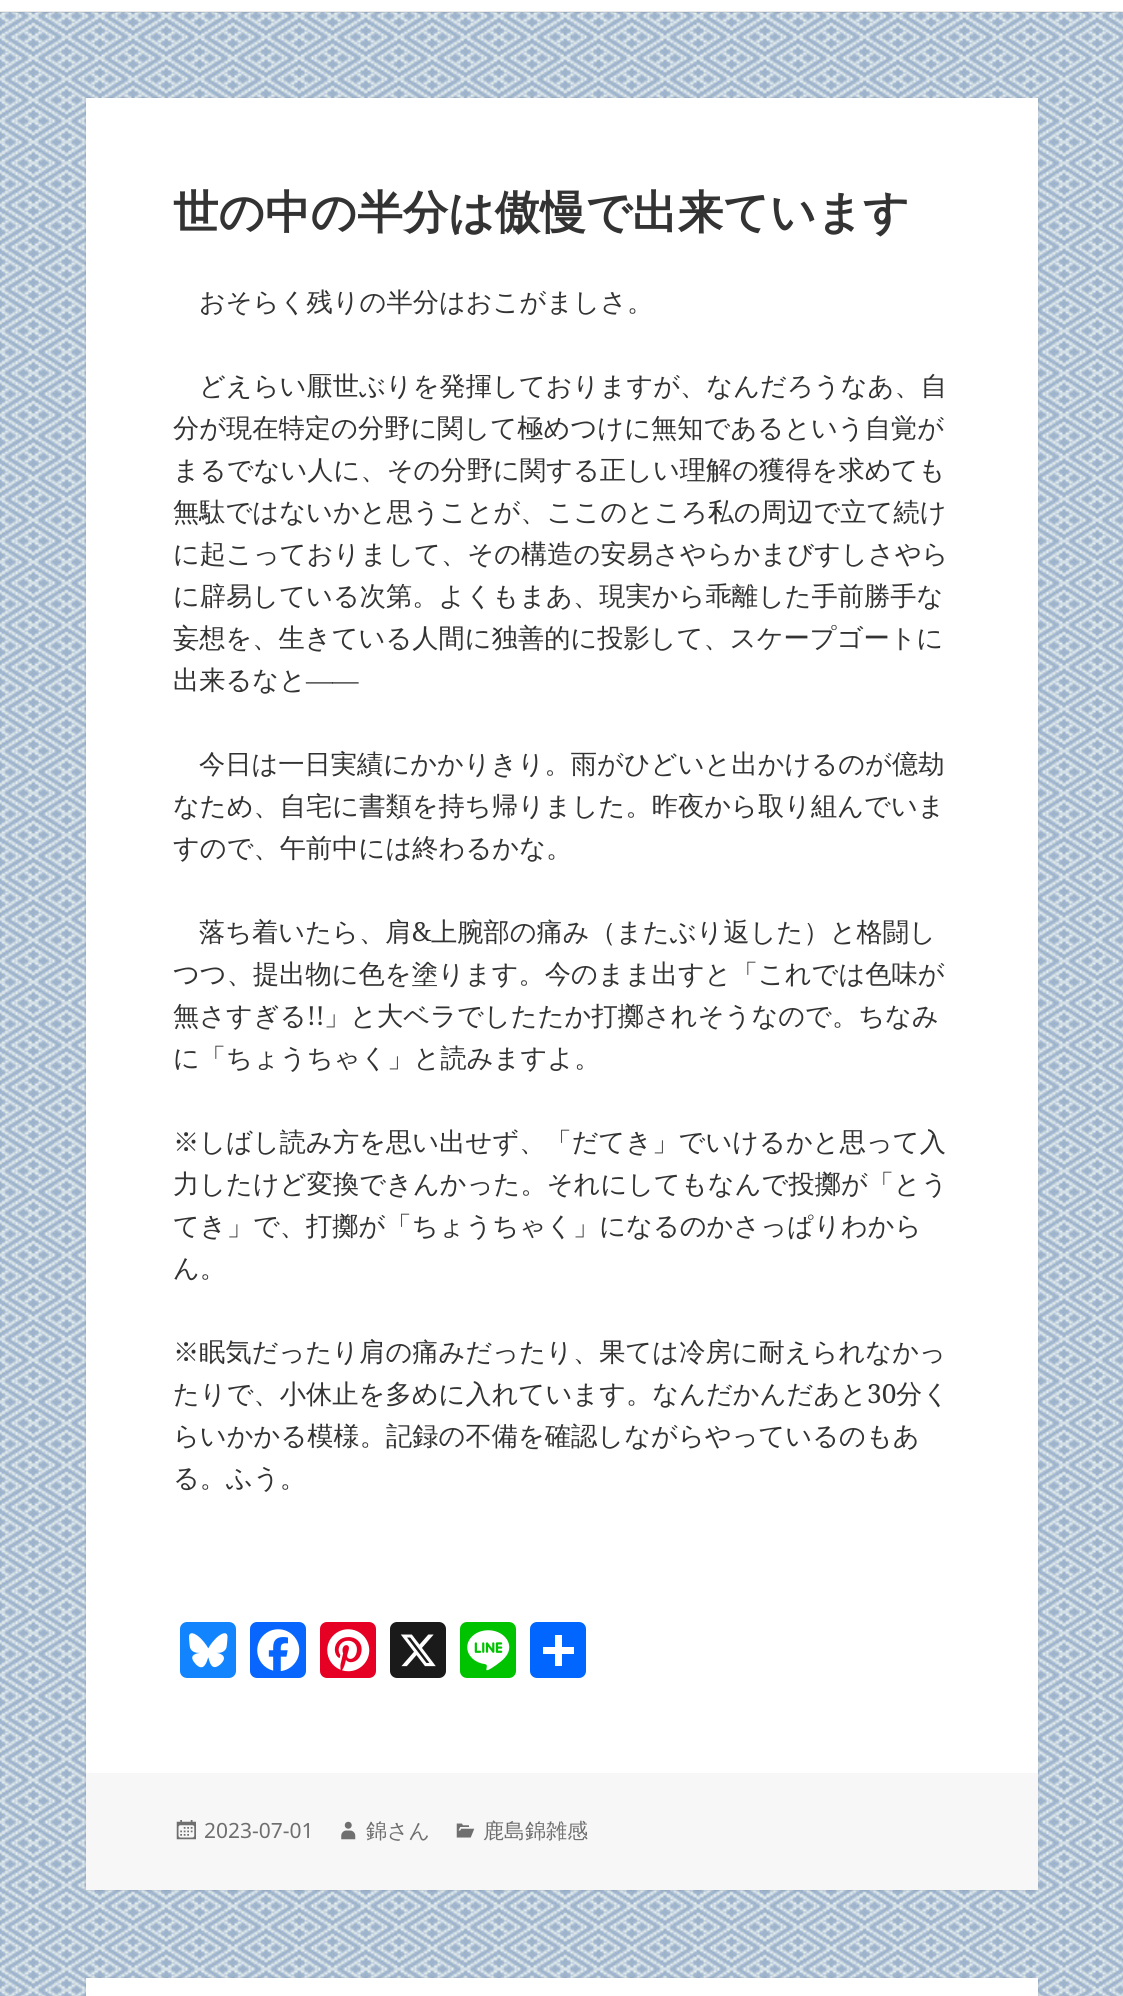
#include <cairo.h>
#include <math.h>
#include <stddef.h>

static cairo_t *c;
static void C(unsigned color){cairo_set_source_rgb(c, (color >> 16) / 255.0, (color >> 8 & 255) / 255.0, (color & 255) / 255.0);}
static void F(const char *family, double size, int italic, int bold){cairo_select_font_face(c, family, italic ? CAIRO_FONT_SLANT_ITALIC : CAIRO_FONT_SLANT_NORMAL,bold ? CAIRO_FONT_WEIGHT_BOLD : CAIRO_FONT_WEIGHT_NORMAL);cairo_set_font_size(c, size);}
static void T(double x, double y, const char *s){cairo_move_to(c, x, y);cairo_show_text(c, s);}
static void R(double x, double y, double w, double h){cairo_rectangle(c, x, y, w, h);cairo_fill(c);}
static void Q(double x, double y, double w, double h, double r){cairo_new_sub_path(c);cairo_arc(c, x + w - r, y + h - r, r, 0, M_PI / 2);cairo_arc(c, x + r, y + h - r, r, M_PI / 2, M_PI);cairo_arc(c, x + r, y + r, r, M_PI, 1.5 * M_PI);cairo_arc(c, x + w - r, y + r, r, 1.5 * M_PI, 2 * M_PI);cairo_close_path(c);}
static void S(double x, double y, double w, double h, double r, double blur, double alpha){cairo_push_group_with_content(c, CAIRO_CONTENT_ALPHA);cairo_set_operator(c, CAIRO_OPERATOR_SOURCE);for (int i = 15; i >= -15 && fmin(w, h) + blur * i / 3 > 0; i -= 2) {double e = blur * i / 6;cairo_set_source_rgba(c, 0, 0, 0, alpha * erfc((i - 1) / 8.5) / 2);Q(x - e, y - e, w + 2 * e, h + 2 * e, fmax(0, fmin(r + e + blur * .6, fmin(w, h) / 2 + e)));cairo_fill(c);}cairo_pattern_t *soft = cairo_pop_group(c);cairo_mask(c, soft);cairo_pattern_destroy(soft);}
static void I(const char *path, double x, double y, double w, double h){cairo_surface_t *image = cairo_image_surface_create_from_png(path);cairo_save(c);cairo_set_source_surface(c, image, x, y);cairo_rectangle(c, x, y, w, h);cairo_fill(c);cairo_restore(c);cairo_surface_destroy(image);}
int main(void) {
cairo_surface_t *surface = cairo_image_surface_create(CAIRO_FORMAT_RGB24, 1123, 1996);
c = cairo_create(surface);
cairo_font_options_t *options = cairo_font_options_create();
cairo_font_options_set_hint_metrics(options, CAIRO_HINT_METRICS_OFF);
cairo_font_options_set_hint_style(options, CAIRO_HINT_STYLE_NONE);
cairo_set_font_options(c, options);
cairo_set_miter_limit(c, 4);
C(0xffffff);
cairo_paint(c);
I("1.png",0,12,1123,1984);
cairo_set_source_rgba(c,0.2,0.2,0.2,0.1);
R(0,11,1123,2);
C(0x000000);
S(86,98,952,1792,0,1,.15);
C(0xffffff);
R(86,98,952,1675);
F("WenQuanYi Zen Hei",45.5,0,1);
C(0x333333);
T(173,228,"世の中の半分は傲慢で出来ています");
F("WenQuanYi Zen Hei Medium",26.25,0,0);
T(199,311,"おそらく残りの半分はおこがましさ。");
T(199,395,"どえらい厭世ぶりを発揮しておりますが、なんだろうなあ、自");
T(173,437,"分が現在特定の分野に関して極めつけに無知であるという自覚が");
T(173,479,"まるでない人に、その分野に関する正しい理解の獲得を求めても");
T(173,521,"無駄ではないかと思うことが、ここのところ私の周辺で立て続け");
T(173,563,"に起こっておりまして、その構造の安易さやらかまびすしさやら");
T(173,605,"に辟易している次第。よくもまあ、現実から乖離した手前勝手な");
T(173,647,"妄想を、生きている人間に独善的に投影して、スケープゴートに");
T(173,689,"出来るなと");
F("Liberation Serif",26.25,0,0);
T(306,689,"――");
F("WenQuanYi Zen Hei Medium",26.25,0,0);
T(199,773,"今日は一日実績にかかりきり。雨がひどいと出かけるのが億劫");
T(173,815,"なため、自宅に書類を持ち帰りました。昨夜から取り組んでいま");
T(173,857,"すので、午前中には終わるかな。");
T(199,941,"落ち着いたら、肩");
F("Noto Serif",26.25,0,0);
T(412,941,"&");
F("WenQuanYi Zen Hei Medium",26.25,0,0);
T(431,941,"上腕部の痛み（またぶり返した）と格闘し");
T(173,983,"つつ、提出物に色を塗ります。今のまま出すと「これでは色味が");
T(173,1025,"無さすぎる");
F("Noto Serif",26.25,0,0);
T(307,1025,"!!");
F("WenQuanYi Zen Hei Medium",26.25,0,0);
T(324,1025,"」と大ベラでしたたか打擲されそうなので。ちなみ");
T(173,1067,"に「ちょうちゃく」と読みますよ。");
T(173,1151,"※しばし読み方を思い出せず、「だてき」でいけるかと思って入");
T(173,1193,"力したけど変換できんかった。それにしてもなんで投擲が「とう");
T(173,1235,"てき」で、打擲が「ちょうちゃく」になるのかさっぱりわから");
T(173,1277,"ん。");
T(173,1361,"※眠気だったり肩の痛みだったり、果ては冷房に耐えられなかっ");
T(173,1403,"たりで、小休止を多めに入れています。なんだかんだあと");
F("Noto Serif",26.25,0,0);
T(867,1403,"30");
F("WenQuanYi Zen Hei Medium",26.25,0,0);
T(896,1403,"分く");
T(173,1445,"らいかかる模様。記録の不備を確認しながらやっているのもあ");
T(173,1487,"る。ふう。");
C(0x1285fe);
Q(180,1622,56,56,7);
cairo_fill(c);
I("2.png",189,1633,39,35);
C(0x0866ff);
Q(250,1622,56,56,7);
cairo_fill(c);
I("3.png",257,1629,43,42);
C(0xe60023);
Q(320,1622,56,56,7);
cairo_fill(c);
I("4.png",327,1629,43,43);
C(0x1a1a1a);
Q(390,1622,56,56,7);
cairo_fill(c);
I("5.png",400,1634,36,33);
C(0x00c300);
Q(460,1622,56,56,7);
cairo_fill(c);
I("6.png",467,1630,43,41);
C(0x0166ff);
Q(530,1622,56,56,7);
cairo_fill(c);
C(0xffffff);
R(555,1635,7,31);
R(543,1647,31,7);
C(0xf7f7f7);
R(86,1773,952,117);
I("7.png",176,1820,20,20);
F("Noto Sans",21,0,0);
C(0x6e6e6e);
T(204,1838,"2023-07-01");
I("8.png",341,1821,15,19);
F("WenQuanYi Zen Hei Medium",21,0,0);
T(366,1838,"錦さん");
I("9.png",456,1823,19,15);
T(483,1838,"鹿島錦雑感");
C(0x000000);
S(86,1978,952,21,0,1,.15);
C(0xffffff);
R(86,1978,952,18);
cairo_surface_write_to_png(surface, "o.png");
cairo_font_options_destroy(options);
cairo_destroy(c);
cairo_surface_destroy(surface);
return 0;
}
